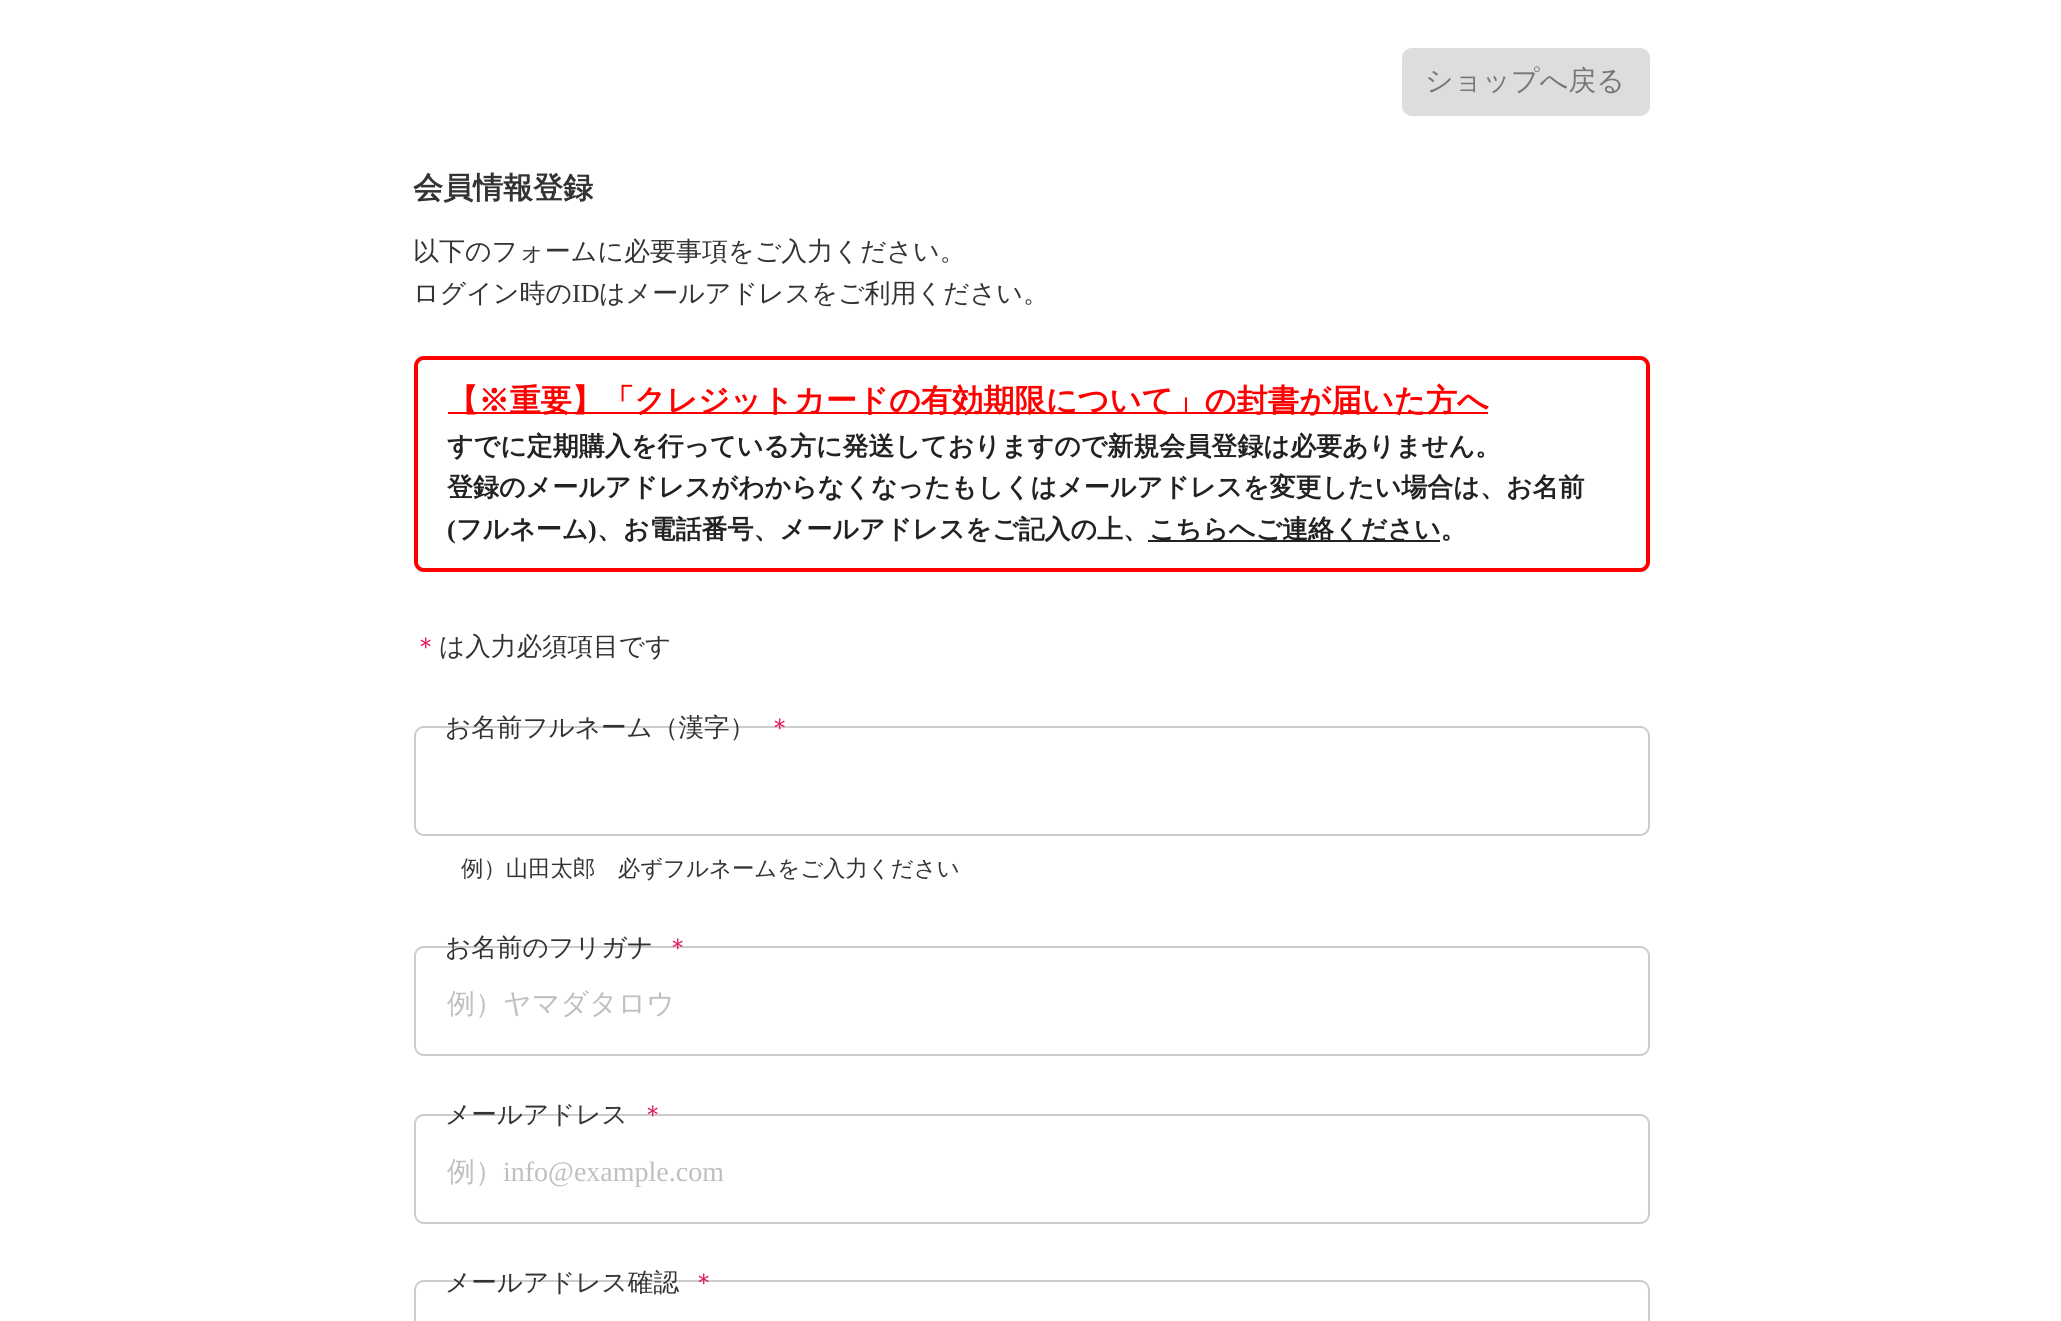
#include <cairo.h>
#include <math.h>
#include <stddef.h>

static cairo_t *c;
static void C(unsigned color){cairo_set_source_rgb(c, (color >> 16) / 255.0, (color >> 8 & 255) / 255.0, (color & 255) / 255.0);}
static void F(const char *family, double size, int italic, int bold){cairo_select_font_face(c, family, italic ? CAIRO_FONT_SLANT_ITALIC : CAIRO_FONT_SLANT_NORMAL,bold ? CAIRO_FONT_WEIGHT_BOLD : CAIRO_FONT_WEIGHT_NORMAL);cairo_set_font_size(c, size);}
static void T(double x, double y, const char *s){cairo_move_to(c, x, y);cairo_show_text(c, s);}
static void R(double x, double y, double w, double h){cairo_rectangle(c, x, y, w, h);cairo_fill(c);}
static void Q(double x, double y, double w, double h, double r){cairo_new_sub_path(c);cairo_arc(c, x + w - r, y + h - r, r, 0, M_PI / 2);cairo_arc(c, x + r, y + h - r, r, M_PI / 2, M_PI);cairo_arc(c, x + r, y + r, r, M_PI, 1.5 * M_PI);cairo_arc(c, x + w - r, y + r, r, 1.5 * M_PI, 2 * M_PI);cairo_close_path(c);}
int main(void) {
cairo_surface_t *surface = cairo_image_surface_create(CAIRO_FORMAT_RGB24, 2061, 1321);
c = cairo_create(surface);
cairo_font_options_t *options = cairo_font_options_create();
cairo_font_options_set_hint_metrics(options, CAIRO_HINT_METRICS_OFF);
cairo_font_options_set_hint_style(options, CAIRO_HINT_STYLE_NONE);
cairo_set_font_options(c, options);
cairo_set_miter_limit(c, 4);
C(0xffffff);
cairo_paint(c);
C(0xdddddd);
Q(1402,48,248,68,10);
cairo_fill(c);
F("WenQuanYi Zen Hei Medium",28,0,0);
C(0x777777);
T(1425,90,"ショップへ戻る");
F("WenQuanYi Zen Hei",30,0,1);
C(0x333333);
T(413,198,"会員情報登録");
F("WenQuanYi Zen Hei Medium",26,0,0);
T(413,260,"以下のフォームに必要事項をご入力ください。");
T(413,302,"ログイン時の");
F("Liberation Serif",26,0,0);
T(572,302,"ID");
F("WenQuanYi Zen Hei Medium",26,0,0);
T(599,302,"はメールアドレスをご利用ください。");
Q(416,358,1232,212,8);
C(0xff0000);
cairo_set_line_width(c,4);
cairo_stroke(c);
R(448,412,1040,2);
F("WenQuanYi Zen Hei",31.2,0,1);
T(447,411,"【※重要】「クレジットカードの有効期限について」の封書が届いた方へ");
F("WenQuanYi Zen Hei",26,0,1);
C(0x222222);
T(447,455,"すでに定期購入を行っている方に発送しておりますので新規会員登録は必要ありません。");
T(447,496,"登録のメールアドレスがわからなくなったもしくはメールアドレスを変更したい場合は、お名前");
F("Liberation Serif",26,0,1);
T(447,538,"(");
F("WenQuanYi Zen Hei",26,0,1);
T(456,538,"フルネーム");
F("Liberation Serif",26,0,1);
T(588,538,")");
F("WenQuanYi Zen Hei",26,0,1);
T(597,538,"、お電話番号、メールアドレスをご記入の上、");
R(1148,540,292,2);
T(1149,538,"こちらへご連絡ください。");
F("WenQuanYi Zen Hei Medium",25.6,0,0);
C(0xe31959);
T(413,655,"＊");
C(0x333333);
T(439,655,"は入力必須項目です");
Q(415,727,1234,108,9);
C(0xcccccc);
cairo_set_line_width(c,2);
cairo_stroke(c);
C(0x333333);
T(445,736,"お名前フルネーム（漢字）");
C(0xe31959);
T(767,736,"＊");
F("WenQuanYi Zen Hei Medium",22.4,0,0);
C(0x333333);
T(461,876,"例）山田太郎　必ずフルネームをご入力ください");
Q(415,947,1234,108,9);
C(0xcccccc);
cairo_stroke(c);
F("WenQuanYi Zen Hei Medium",25.6,0,0);
C(0x333333);
T(445,956,"お名前のフリガナ");
C(0xe31959);
T(665,956,"＊");
F("WenQuanYi Zen Hei Medium",28,0,0);
C(0xbfbfbf);
T(447,1013,"例）ヤマダタロウ");
Q(415,1115,1234,108,9);
C(0xcccccc);
cairo_stroke(c);
F("WenQuanYi Zen Hei Medium",25.6,0,0);
C(0x333333);
T(445,1123,"メールアドレス");
C(0xe31959);
T(640,1123,"＊");
F("WenQuanYi Zen Hei Medium",28,0,0);
C(0xbfbfbf);
T(447,1181,"例）");
F("Liberation Serif",28,0,0);
T(503,1181,"info@example.com");
Q(415,1281,1234,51,9);
C(0xcccccc);
cairo_stroke(c);
F("WenQuanYi Zen Hei Medium",25.6,0,0);
C(0x333333);
T(445,1291,"メールアドレス確認");
C(0xe31959);
T(691,1291,"＊");
cairo_surface_write_to_png(surface, "o.png");
cairo_font_options_destroy(options);
cairo_destroy(c);
cairo_surface_destroy(surface);
return 0;
}
